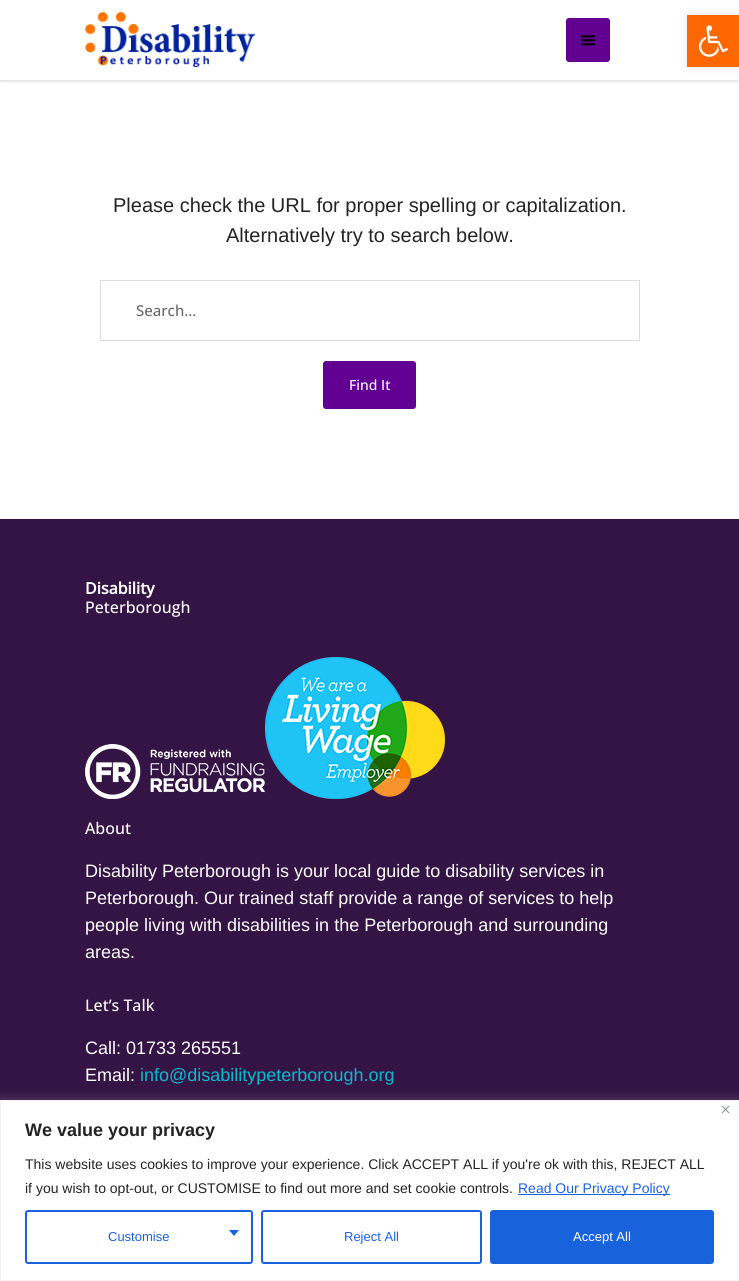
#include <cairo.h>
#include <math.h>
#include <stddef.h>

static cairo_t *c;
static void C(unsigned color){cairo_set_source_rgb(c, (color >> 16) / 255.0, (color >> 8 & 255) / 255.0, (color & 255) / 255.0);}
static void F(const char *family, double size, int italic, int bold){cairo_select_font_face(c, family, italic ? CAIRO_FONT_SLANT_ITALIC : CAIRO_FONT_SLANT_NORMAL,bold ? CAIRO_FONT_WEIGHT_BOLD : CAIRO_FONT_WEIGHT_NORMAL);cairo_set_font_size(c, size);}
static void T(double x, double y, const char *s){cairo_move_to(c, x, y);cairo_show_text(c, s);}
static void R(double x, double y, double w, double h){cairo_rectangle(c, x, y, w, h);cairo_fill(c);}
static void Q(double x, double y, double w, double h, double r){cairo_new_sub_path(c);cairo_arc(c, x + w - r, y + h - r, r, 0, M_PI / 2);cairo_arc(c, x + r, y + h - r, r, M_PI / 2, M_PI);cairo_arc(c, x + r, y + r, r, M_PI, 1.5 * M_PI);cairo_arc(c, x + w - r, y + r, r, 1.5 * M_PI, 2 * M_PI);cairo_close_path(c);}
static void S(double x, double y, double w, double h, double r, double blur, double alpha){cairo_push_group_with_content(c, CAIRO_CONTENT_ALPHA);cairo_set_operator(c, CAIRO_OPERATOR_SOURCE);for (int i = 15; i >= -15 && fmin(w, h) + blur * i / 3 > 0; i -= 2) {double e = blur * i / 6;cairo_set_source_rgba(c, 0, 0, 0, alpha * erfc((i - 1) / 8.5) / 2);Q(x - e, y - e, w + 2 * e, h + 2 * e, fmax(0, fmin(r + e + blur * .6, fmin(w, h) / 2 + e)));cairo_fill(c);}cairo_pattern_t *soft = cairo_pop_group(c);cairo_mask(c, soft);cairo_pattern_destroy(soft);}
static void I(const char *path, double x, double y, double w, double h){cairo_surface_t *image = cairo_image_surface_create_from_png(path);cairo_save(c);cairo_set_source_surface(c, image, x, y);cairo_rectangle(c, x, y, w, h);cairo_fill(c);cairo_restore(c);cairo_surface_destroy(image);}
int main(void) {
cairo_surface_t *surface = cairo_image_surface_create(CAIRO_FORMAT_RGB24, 739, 1281);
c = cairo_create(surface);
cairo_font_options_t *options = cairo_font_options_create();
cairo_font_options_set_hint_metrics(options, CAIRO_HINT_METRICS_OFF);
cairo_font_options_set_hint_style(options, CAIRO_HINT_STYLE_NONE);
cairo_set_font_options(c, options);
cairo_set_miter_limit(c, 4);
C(0xffffff);
cairo_paint(c);
C(0x000000);
S(687,15,52,52,0,5,.1);
cairo_save(c);
cairo_rectangle(c,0,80,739,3);
cairo_clip(c);
S(0,2,739,80,0,1,.1);
cairo_restore(c);
C(0xff6800);
R(687,15,52,52);
I("1.png",698,25,30,32);
I("2.png",85,12,170,55);
C(0x620092);
Q(566,18,44,44,3);
cairo_fill(c);
I("3.png",581,35,14,11);
F("Liberation Sans",20,0,0);
C(0x232323);
T(113,212,"Please check the URL for proper spelling or capitalization.");
T(226,242,"Alternatively try to search below.");
cairo_rectangle(c,100.5,280.5,539,60);
C(0xdddddd);
cairo_set_line_width(c,1);
cairo_stroke(c);
F("Open Sans Medium",15,0,0);
C(0x666666);
T(136,316,"Search...");
C(0x620093);
Q(323.5,361.5,92,47,2.5);
cairo_fill_preserve(c);
cairo_stroke(c);
F("Open Sans Medium",14,0,0);
C(0xffffff);
T(349,390,"Find It");
C(0x341345);
R(0,519,739,581);
F("Open Sans",16,0,1);
C(0xffffff);
T(85,594,"Disability");
F("Open Sans Medium",16,0,0);
T(85,613,"Peterborough");
I("4.png",85,744,180,55);
I("5.png",265,657,180,142);
T(85,834,"About");
F("Liberation Sans",18,0,0);
T(85,877,"Disability Peterborough is your local guide to disability services in");
T(85,904,"Peterborough. Our trained staff provide a range of services to help");
T(85,931,"people living with disabilities in the Peterborough and surrounding");
T(85,958,"areas.");
F("Open Sans Medium",16,0,0);
T(85,1011,"Let’s Talk");
F("Liberation Sans",18,0,0);
T(85,1054,"Call: 01733 265551");
T(85,1081,"Email:");
C(0x0cbacf);
T(140,1081,"info@disabilitypeterborough.org");
C(0xacabab);
S(0,1099,739,181,0,5,.3);
C(0xffffff);
cairo_rectangle(c,.5,1100.5,738,180);
cairo_fill_preserve(c);
C(0xf4f4f4);
cairo_stroke(c);
I("6.png",721,1105,9,9);
F("Liberation Sans",18,0,1);
C(0x232323);
T(25,1136,"We value your privacy");
F("Liberation Sans",14,0,0);
T(25,1169,"This website uses cookies to improve your experience. Click ACCEPT ALL if you're ok with this, REJECT ALL");
T(25,1193,"if you wish to opt-out, or CUSTOMISE to find out more and set cookie controls.");
C(0x1863dc);
R(518,1194,152,1);
T(518,1193,"Read Our Privacy Policy");
Q(26,1211,226,52,2);
cairo_set_line_width(c,2);
cairo_stroke(c);
F("Liberation Sans",13,0,0);
T(108,1241,"Customise");
cairo_new_path(c);
cairo_move_to(c,229,1230);
cairo_line_to(c,239,1230);
cairo_line_to(c,234,1236);
cairo_close_path(c);
cairo_fill(c);
Q(262,1211,219,52,2);
cairo_stroke(c);
T(344,1241,"Reject All");
Q(491,1211,222,52,2);
cairo_fill_preserve(c);
cairo_stroke(c);
C(0xffffff);
T(573,1241,"Accept All");
cairo_surface_write_to_png(surface, "o.png");
cairo_font_options_destroy(options);
cairo_destroy(c);
cairo_surface_destroy(surface);
return 0;
}
